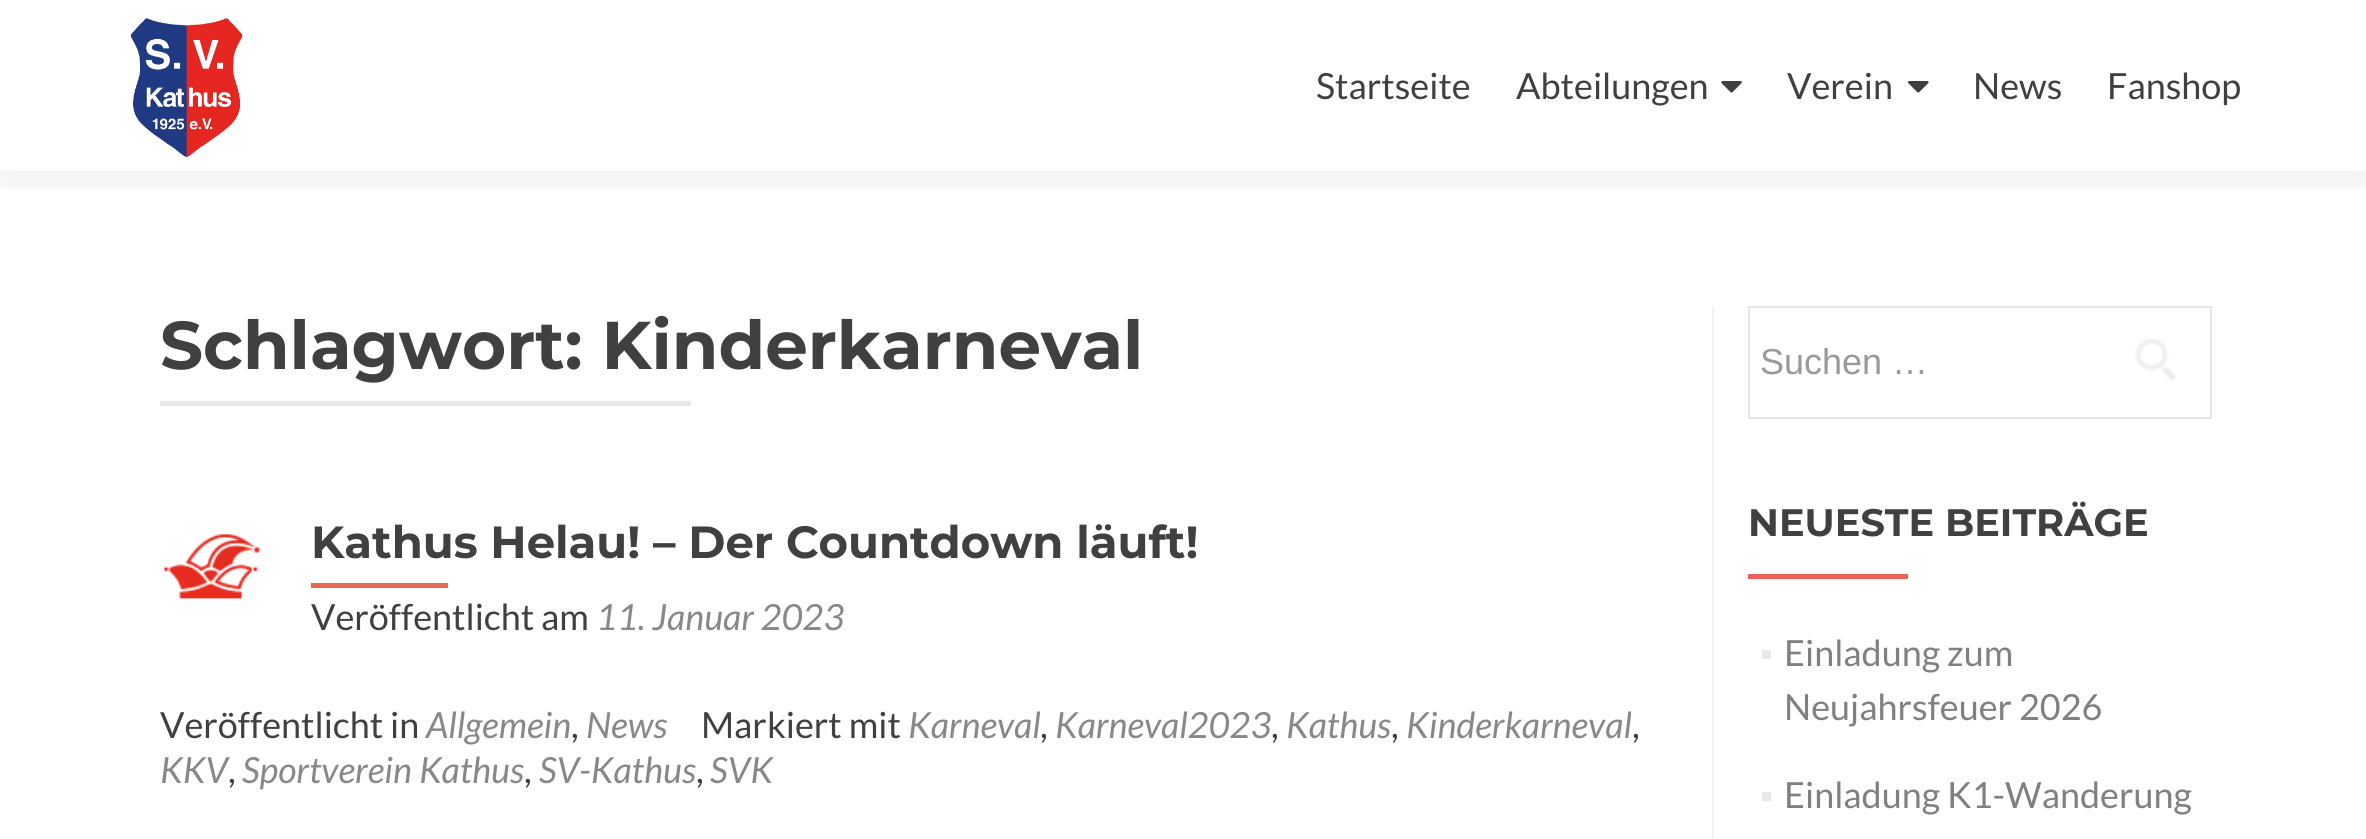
#include <cairo.h>
#include <math.h>
#include <stddef.h>

static cairo_t *c;
static void C(unsigned color){cairo_set_source_rgb(c, (color >> 16) / 255.0, (color >> 8 & 255) / 255.0, (color & 255) / 255.0);}
static void F(const char *family, double size, int italic, int bold){cairo_select_font_face(c, family, italic ? CAIRO_FONT_SLANT_ITALIC : CAIRO_FONT_SLANT_NORMAL,bold ? CAIRO_FONT_WEIGHT_BOLD : CAIRO_FONT_WEIGHT_NORMAL);cairo_set_font_size(c, size);}
static void T(double x, double y, const char *s){cairo_move_to(c, x, y);cairo_show_text(c, s);}
static void R(double x, double y, double w, double h){cairo_rectangle(c, x, y, w, h);cairo_fill(c);}
static void Q(double x, double y, double w, double h, double r){cairo_new_sub_path(c);cairo_arc(c, x + w - r, y + h - r, r, 0, M_PI / 2);cairo_arc(c, x + r, y + h - r, r, M_PI / 2, M_PI);cairo_arc(c, x + r, y + r, r, M_PI, 1.5 * M_PI);cairo_arc(c, x + w - r, y + r, r, 1.5 * M_PI, 2 * M_PI);cairo_close_path(c);}
static void S(double x, double y, double w, double h, double r, double blur, double alpha){cairo_push_group_with_content(c, CAIRO_CONTENT_ALPHA);cairo_set_operator(c, CAIRO_OPERATOR_SOURCE);for (int i = 15; i >= -15 && fmin(w, h) + blur * i / 3 > 0; i -= 2) {double e = blur * i / 6;cairo_set_source_rgba(c, 0, 0, 0, alpha * erfc((i - 1) / 8.5) / 2);Q(x - e, y - e, w + 2 * e, h + 2 * e, fmax(0, fmin(r + e + blur * .6, fmin(w, h) / 2 + e)));cairo_fill(c);}cairo_pattern_t *soft = cairo_pop_group(c);cairo_mask(c, soft);cairo_pattern_destroy(soft);}
static void I(const char *path, double x, double y, double w, double h){cairo_surface_t *image = cairo_image_surface_create_from_png(path);cairo_save(c);cairo_set_source_surface(c, image, x, y);cairo_rectangle(c, x, y, w, h);cairo_fill(c);cairo_restore(c);cairo_surface_destroy(image);}
int main(void) {
cairo_surface_t *surface = cairo_image_surface_create(CAIRO_FORMAT_RGB24, 2366, 839);
c = cairo_create(surface);
cairo_font_options_t *options = cairo_font_options_create();
cairo_font_options_set_hint_metrics(options, CAIRO_HINT_METRICS_OFF);
cairo_font_options_set_hint_style(options, CAIRO_HINT_STYLE_NONE);
cairo_set_font_options(c, options);
cairo_set_miter_limit(c, 4);
C(0xffffff);
cairo_paint(c);
cairo_save(c);
cairo_rectangle(c,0,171,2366,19);
cairo_clip(c);
C(0x323232);
S(0,11,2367,171,0,12.5,.08);
cairo_restore(c);
I("1.png",130,18,114,139);
F("Lato",36,0,0);
C(0x404040);
T(1316,99,"Startseite");
T(1516,99,"Abteilungen");
I("2.png",1721,81,21,12);
T(1787,99,"Verein");
I("3.png",1908,81,21,12);
T(1973,99,"News");
T(2107,99,"Fanshop");
F("Montserrat",67.5,0,1);
T(160,369,"Schlagwort: Kinderkarneval");
C(0xe9e9e9);
R(160,401,531,5);
F("Montserrat",45,0,1);
C(0x404040);
T(311,558,"Kathus Helau! – Der Countdown läuft!");
C(0xe96656);
R(311,583,137,5);
F("Lato",36,0,0);
C(0x404040);
T(311,630,"Veröffentlicht am");
F("Lato",36,1,0);
C(0x888888);
T(596,630,"11. Januar 2023");
F("Lato",36,0,0);
C(0x404040);
T(160,738,"Veröffentlicht in");
F("Lato",36,1,0);
C(0x888888);
T(426,738,"Allgemein");
F("Lato",36,0,0);
C(0x404040);
T(571,738,",");
F("Lato",36,1,0);
C(0x888888);
T(586,738,"News");
F("Lato",36,0,0);
C(0x404040);
T(701,738,"Markiert mit");
F("Lato",36,1,0);
C(0x888888);
T(908,738,"Karneval");
F("Lato",36,0,0);
C(0x404040);
T(1040,738,",");
F("Lato",36,1,0);
C(0x888888);
T(1055,738,"Karneval2023");
F("Lato",36,0,0);
C(0x404040);
T(1271,738,",");
F("Lato",36,1,0);
C(0x888888);
T(1286,738,"Kathus");
F("Lato",36,0,0);
C(0x404040);
T(1391,738,",");
F("Lato",36,1,0);
C(0x888888);
T(1406,738,"Kinderkarneval");
F("Lato",36,0,0);
C(0x404040);
T(1632,738,",");
F("Lato",36,1,0);
C(0x888888);
T(160,783,"KKV");
F("Lato",36,0,0);
C(0x404040);
T(228,783,",");
F("Lato",36,1,0);
C(0x888888);
T(242,783,"Sportverein Kathus");
F("Lato",36,0,0);
C(0x404040);
T(524,783,",");
F("Lato",36,1,0);
C(0x888888);
T(539,783,"SV-Kathus");
F("Lato",36,0,0);
C(0x404040);
T(696,783,",");
F("Lato",36,1,0);
C(0x888888);
T(710,783,"SVK");
I("4.png",164,534,96,65);
C(0xf2f2f2);
R(1712,306,2,533);
cairo_rectangle(c,1749,307,462,111);
C(0xe6e6e6);
cairo_stroke(c);
F("Liberation Sans",36,0,0);
C(0x999999);
T(1760,374,"Suchen …");
I("5.png",2135,337,41,43);
F("Montserrat",38.25,0,1);
C(0x404040);
T(1748,536,"NEUESTE BEITRÄGE");
C(0xe96656);
R(1748,574,160,5);
C(0xe9e9e9);
R(1762,650,9,9);
F("Lato",36,0,0);
C(0x808080);
T(1784,666,"Einladung zum");
T(1784,720,"Neujahrsfeuer 2026");
C(0xe9e9e9);
R(1762,792,9,9);
C(0x808080);
T(1784,808,"Einladung K1-Wanderung");
cairo_surface_write_to_png(surface, "o.png");
cairo_font_options_destroy(options);
cairo_destroy(c);
cairo_surface_destroy(surface);
return 0;
}
